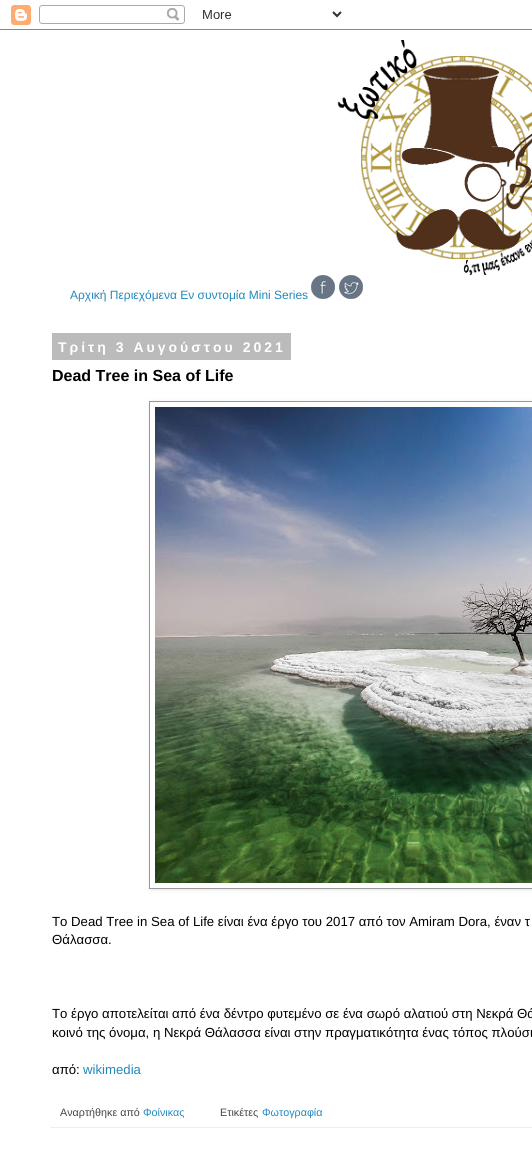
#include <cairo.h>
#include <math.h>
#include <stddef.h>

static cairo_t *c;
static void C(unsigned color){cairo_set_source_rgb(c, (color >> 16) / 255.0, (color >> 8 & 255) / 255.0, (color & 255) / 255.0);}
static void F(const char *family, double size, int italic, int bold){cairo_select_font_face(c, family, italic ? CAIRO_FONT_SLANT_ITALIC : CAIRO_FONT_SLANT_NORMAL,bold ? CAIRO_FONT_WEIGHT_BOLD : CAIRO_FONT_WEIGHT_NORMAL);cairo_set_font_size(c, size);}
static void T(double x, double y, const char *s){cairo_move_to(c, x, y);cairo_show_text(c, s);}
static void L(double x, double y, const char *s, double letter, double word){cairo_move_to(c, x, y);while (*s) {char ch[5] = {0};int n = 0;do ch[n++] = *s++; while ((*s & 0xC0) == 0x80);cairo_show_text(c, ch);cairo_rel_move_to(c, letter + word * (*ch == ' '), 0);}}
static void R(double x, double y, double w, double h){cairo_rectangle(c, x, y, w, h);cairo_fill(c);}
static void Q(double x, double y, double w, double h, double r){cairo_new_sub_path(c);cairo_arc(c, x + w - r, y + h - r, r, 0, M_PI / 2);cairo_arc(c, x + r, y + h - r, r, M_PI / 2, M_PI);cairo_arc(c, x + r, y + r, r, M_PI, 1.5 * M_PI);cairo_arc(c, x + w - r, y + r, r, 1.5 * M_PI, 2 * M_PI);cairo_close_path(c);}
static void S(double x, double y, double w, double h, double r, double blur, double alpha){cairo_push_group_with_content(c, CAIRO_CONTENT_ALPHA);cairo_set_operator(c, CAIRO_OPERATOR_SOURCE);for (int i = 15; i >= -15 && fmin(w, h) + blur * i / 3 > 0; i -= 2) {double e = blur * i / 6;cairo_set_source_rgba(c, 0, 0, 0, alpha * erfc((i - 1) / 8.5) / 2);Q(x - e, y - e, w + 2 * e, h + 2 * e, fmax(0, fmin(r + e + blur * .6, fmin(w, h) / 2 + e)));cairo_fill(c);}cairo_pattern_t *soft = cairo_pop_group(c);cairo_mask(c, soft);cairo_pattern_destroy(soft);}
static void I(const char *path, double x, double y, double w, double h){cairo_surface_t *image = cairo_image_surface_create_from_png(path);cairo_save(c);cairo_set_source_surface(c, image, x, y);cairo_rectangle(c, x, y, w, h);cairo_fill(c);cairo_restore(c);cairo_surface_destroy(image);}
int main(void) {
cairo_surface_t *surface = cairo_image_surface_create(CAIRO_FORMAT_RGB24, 532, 1173);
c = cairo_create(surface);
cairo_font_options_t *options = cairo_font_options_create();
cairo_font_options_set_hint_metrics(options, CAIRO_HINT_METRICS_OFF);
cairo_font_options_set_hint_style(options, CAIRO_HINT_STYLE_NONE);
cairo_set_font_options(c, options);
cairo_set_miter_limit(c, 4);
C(0xffffff);
cairo_paint(c);
I("1.png",0,5,532,25);
I("2.png",337,40,195,235);
F("Liberation Sans",12,0,0);
C(0x2288bb);
T(70,299,"Αρχική Περιεχόμενα Εν συντομία Mini Series");
I("3.png",311,275,24,24);
I("4.png",339,275,24,24);
C(0xbbbbbb);
R(52,333,239,27);
F("Liberation Sans",14,0,1);
C(0xffffff);
L(58,352,"Τρίτη 3 Αυγούστου 2021",3,0);
F("Liberation Sans",16,0,1);
C(0x000000);
T(52,381,"Dead Tree in Sea of Life");
cairo_save(c);
cairo_set_fill_rule(c,CAIRO_FILL_RULE_EVEN_ODD);
cairo_new_path(c);
cairo_move_to(c,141,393);
cairo_line_to(c,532,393);
cairo_line_to(c,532,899);
cairo_line_to(c,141,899);
cairo_close_path(c);
cairo_move_to(c,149,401);
cairo_line_to(c,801,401);
cairo_line_to(c,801,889);
cairo_line_to(c,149,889);
cairo_close_path(c);
cairo_clip(c);
C(0x000000);
S(150,402,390,488,0,2.5,.1);
cairo_restore(c);
cairo_rectangle(c,149.5,401.5,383,487);
C(0x999999);
cairo_set_line_width(c,1);
cairo_stroke(c);
I("5.png",155,407,377,476);
F("Liberation Sans",13.2,0,0);
C(0x000000);
T(52,926,"Το Dead Tree in Sea of Life είναι ένα έργο του 2017 από τον Amiram Dora, έναν τ");
T(52,944,"Θάλασσα.");
T(52,1018,"Το έργο αποτελείται από ένα δέντρο φυτεμένο σε ένα σωρό αλατιού στη Νεκρά Θά");
T(52,1037,"κοινό της όνομα, η Νεκρά Θάλασσα είναι στην πραγματικότητα ένας τόπος πλούσι");
T(52,1074,"από:");
C(0x2288bb);
T(83,1074,"wikimedia");
C(0xeeeeee);
R(50,1127,482,1);
F("Liberation Sans",10.75,0,0);
C(0x444444);
T(60,1116,"Αναρτήθηκε από");
C(0x2288bb);
T(143,1116,"Φοίνικας");
C(0x444444);
T(220,1116,"Ετικέτες");
C(0x2288bb);
T(262,1116,"Φωτογραφία");
cairo_surface_write_to_png(surface, "o.png");
cairo_font_options_destroy(options);
cairo_destroy(c);
cairo_surface_destroy(surface);
return 0;
}
